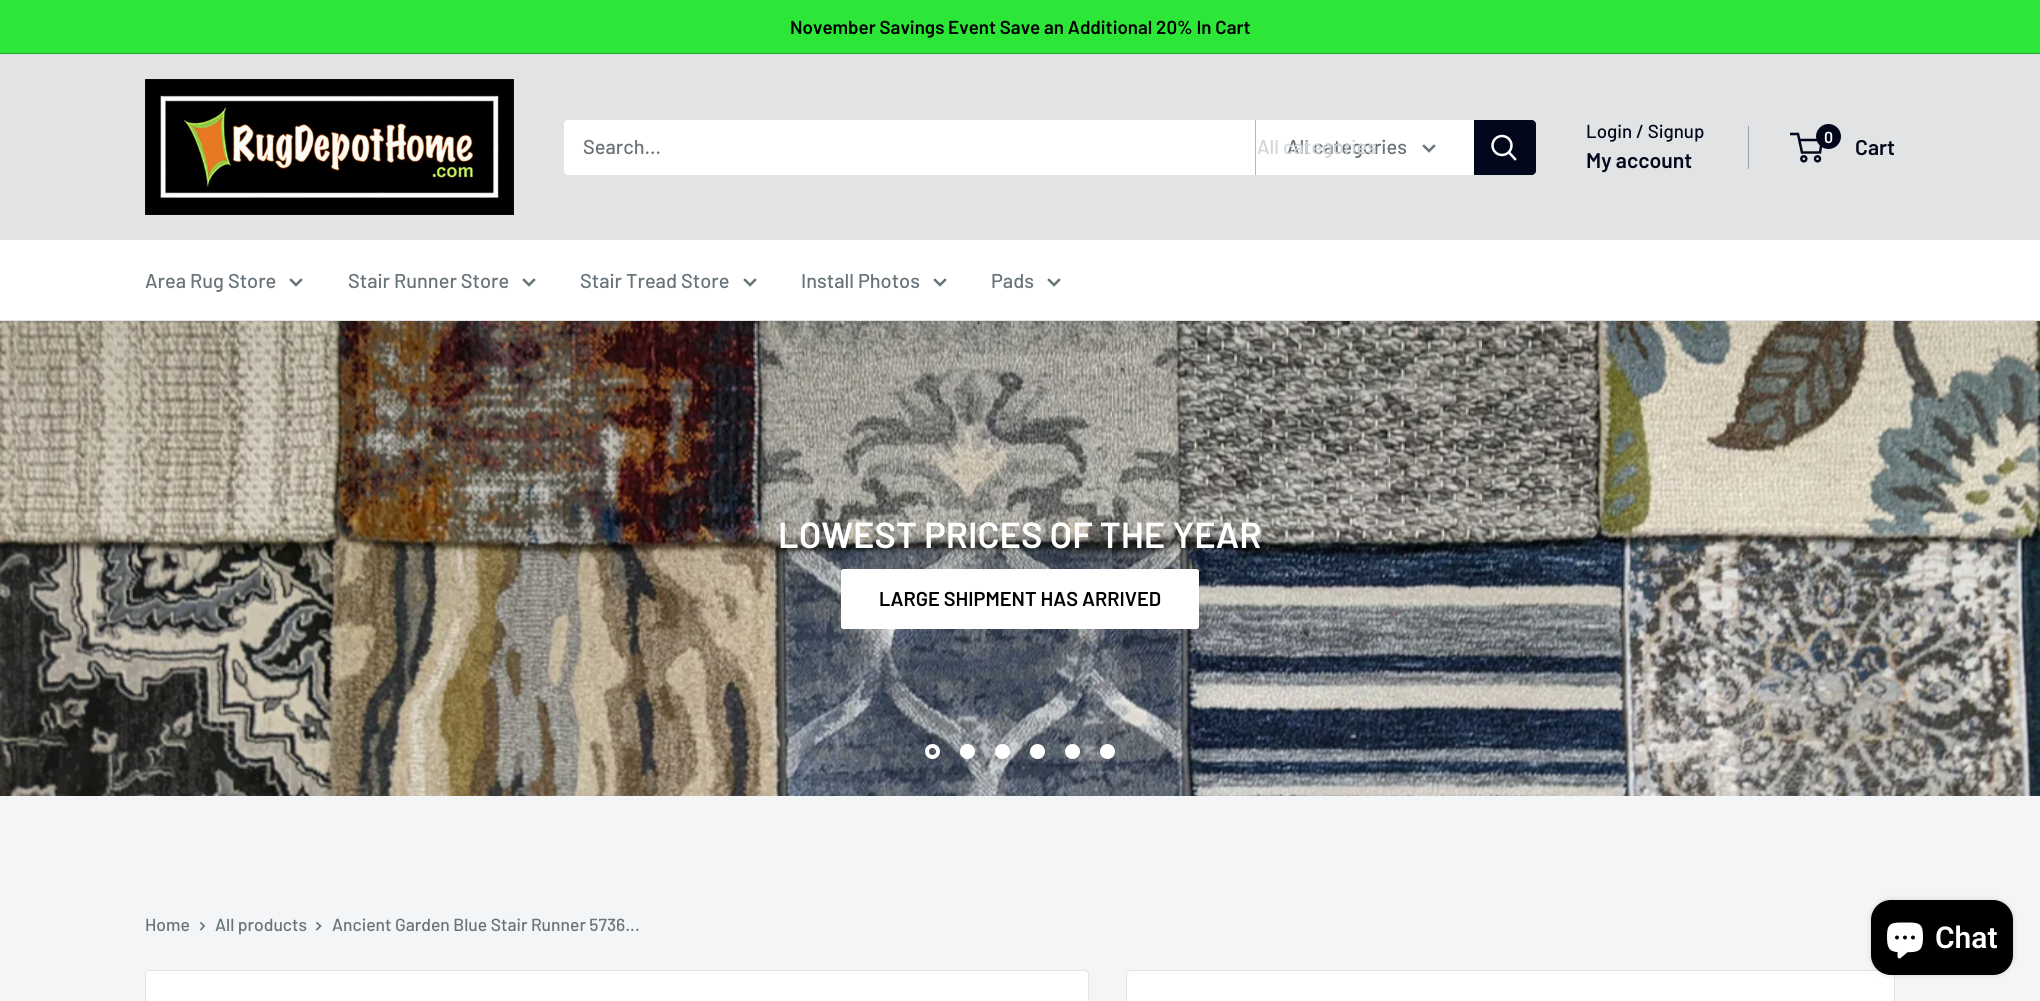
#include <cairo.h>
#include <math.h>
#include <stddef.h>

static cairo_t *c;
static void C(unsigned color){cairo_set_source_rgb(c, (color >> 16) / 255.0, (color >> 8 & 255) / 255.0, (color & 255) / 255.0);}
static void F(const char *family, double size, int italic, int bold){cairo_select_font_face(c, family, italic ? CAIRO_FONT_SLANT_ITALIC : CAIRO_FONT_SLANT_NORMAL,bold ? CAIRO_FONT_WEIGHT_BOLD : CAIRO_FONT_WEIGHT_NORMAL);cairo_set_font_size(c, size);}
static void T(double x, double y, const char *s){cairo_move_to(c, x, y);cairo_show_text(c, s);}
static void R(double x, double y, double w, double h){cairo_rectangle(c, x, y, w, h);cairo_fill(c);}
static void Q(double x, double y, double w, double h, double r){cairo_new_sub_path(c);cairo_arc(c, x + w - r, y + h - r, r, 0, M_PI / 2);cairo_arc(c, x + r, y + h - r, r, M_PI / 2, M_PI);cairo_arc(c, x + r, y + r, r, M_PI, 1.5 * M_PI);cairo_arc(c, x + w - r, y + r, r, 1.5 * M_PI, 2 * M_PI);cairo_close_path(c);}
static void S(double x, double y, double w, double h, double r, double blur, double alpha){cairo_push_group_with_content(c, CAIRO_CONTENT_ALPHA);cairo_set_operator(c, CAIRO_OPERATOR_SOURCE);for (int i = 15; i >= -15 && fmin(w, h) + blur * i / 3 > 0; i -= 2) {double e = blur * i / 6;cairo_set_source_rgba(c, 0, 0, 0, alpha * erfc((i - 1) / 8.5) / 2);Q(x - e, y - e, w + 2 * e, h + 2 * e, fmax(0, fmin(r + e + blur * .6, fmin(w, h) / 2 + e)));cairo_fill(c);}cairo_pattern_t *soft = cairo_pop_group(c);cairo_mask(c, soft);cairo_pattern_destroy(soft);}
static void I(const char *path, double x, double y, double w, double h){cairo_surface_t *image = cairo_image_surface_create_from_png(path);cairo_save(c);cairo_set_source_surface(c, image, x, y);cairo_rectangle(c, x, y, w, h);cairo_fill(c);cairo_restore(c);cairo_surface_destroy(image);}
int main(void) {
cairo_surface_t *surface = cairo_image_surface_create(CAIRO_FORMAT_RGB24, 2040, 1001);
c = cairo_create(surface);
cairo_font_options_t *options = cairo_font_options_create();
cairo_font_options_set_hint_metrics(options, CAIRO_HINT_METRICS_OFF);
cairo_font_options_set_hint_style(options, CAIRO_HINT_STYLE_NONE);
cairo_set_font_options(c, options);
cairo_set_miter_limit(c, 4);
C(0xf3f5f6);
cairo_paint(c);
C(0x2de738);
R(0,0,2040,53);
C(0x20a42f);
R(0,53,2040,1);
F("Barlow SemiBold",18.75,0,0);
C(0x000000);
T(790,34,"November Savings Event Save an Additional 20% In Cart");
C(0xe1e3e4);
R(0,54,2040,186);
I("1.png",145,79,369,136);
C(0xffffff);
Q(564,120,972,55,4);
cairo_fill(c);
F("Barlow Medium",20,0,0);
C(0x677279);
T(583,154,"Search...");
C(0xb3b5bb);
R(1255,120,1,55);
C(0x677279);
T(1287,154,"All categories");
C(0xd1d5d7);
T(1257,154,"All categories");
cairo_new_path(c);
cairo_move_to(c,1434,146);
cairo_line_to(c,1429,151);
cairo_line_to(c,1424,146);
C(0x677279);
cairo_set_line_width(c,2.5);
cairo_set_line_cap(c,CAIRO_LINE_CAP_SQUARE);
cairo_stroke(c);
C(0x03071b);
cairo_new_path(c);
cairo_move_to(c,1474,120);
cairo_line_to(c,1532,120);
cairo_curve_to(c,1534,120,1536,122,1536,124);
cairo_line_to(c,1536,171);
cairo_curve_to(c,1536,173,1534,175,1532,175);
cairo_line_to(c,1474,175);
cairo_close_path(c);
cairo_fill(c);
cairo_new_path(c);
cairo_move_to(c,1515,159);
cairo_line_to(c,1509,152.5);
C(0xffffff);
cairo_stroke(c);
cairo_arc(c,1502,145.5,9.5,0,2 * M_PI);
cairo_set_line_cap(c,CAIRO_LINE_CAP_BUTT);
cairo_stroke(c);
F("Barlow Medium",18.75,0,0);
C(0x03071b);
T(1586,138,"Login / Signup");
C(0x9ea1a8);
R(1748,126,1,43);
F("Barlow SemiBold",21.25,0,0);
C(0x03071b);
T(1586,168,"My account");
cairo_new_path(c);
cairo_arc(c,1803.8,158.8,2.5,0,2 * M_PI);
cairo_stroke(c);
cairo_arc(c,1817.5,158.8,2.5,0,2 * M_PI);
cairo_stroke(c);
cairo_new_path(c);
cairo_move_to(c,1799,140);
cairo_line_to(c,1822,140);
cairo_line_to(c,1820,152.5);
cairo_line_to(c,1802,152.5);
cairo_line_to(c,1798,134);
cairo_line_to(c,1790,134);
cairo_stroke(c);
cairo_arc(c,1828.5,136.5,12.5,0,2 * M_PI);
cairo_fill(c);
F("Barlow SemiBold",16,0,0);
C(0xffffff);
T(1824,143,"0");
F("Barlow SemiBold",21.25,0,0);
C(0x03071b);
T(1855,155,"Cart");
C(0xffffff);
R(0,240,2040,80);
C(0xe1e3e4);
R(0,320,2040,1);
F("Barlow Medium",20,0,0);
C(0x677279);
T(145,288,"Area Rug Store");
cairo_new_path(c);
cairo_move_to(c,301,280);
cairo_line_to(c,296,285);
cairo_line_to(c,291,280);
cairo_set_line_cap(c,CAIRO_LINE_CAP_SQUARE);
cairo_stroke(c);
T(348,288,"Stair Runner Store");
cairo_new_path(c);
cairo_move_to(c,534,280);
cairo_line_to(c,529,285);
cairo_line_to(c,524,280);
cairo_stroke(c);
T(580,288,"Stair Tread Store");
cairo_new_path(c);
cairo_move_to(c,755,280);
cairo_line_to(c,750,285);
cairo_line_to(c,745,280);
cairo_stroke(c);
T(801,288,"Install Photos");
cairo_new_path(c);
cairo_move_to(c,945,280);
cairo_line_to(c,940,285);
cairo_line_to(c,935,280);
cairo_stroke(c);
T(991,288,"Pads");
cairo_new_path(c);
cairo_move_to(c,1059,280);
cairo_line_to(c,1054,285);
cairo_line_to(c,1049,280);
cairo_stroke(c);
I("2.png",0,321,2040,475);
F("Barlow SemiBold",36.25,0,0);
C(0xffffff);
T(778,548,"LOWEST PRICES OF THE YEAR");
Q(841,569,358,60,2.5);
cairo_fill(c);
F("Barlow SemiBold",20,0,0);
C(0x000000);
T(879,606,"LARGE SHIPMENT HAS ARRIVED");
cairo_new_path(c);
cairo_arc(c,932.5,751.5,5.5,0,2 * M_PI);
C(0xffffff);
cairo_set_line_width(c,4);
cairo_set_line_cap(c,CAIRO_LINE_CAP_BUTT);
cairo_stroke(c);
cairo_arc(c,967.5,751.5,5.5,0,2 * M_PI);
cairo_fill_preserve(c);
cairo_stroke(c);
cairo_arc(c,1002.5,751.5,5.5,0,2 * M_PI);
cairo_fill_preserve(c);
cairo_stroke(c);
cairo_arc(c,1037.5,751.5,5.5,0,2 * M_PI);
cairo_fill_preserve(c);
cairo_stroke(c);
cairo_arc(c,1072.5,751.5,5.5,0,2 * M_PI);
cairo_fill_preserve(c);
cairo_stroke(c);
cairo_arc(c,1107.5,751.5,5.5,0,2 * M_PI);
cairo_fill_preserve(c);
cairo_stroke(c);
F("Barlow Medium",17.5,0,0);
C(0x677279);
T(145,931,"Home");
cairo_new_path(c);
cairo_move_to(c,201,923);
cairo_line_to(c,204,926);
cairo_line_to(c,201,929.5);
cairo_set_line_width(c,1.7);
cairo_set_line_cap(c,CAIRO_LINE_CAP_SQUARE);
cairo_stroke(c);
T(215,931,"All products");
cairo_new_path(c);
cairo_move_to(c,317,923);
cairo_line_to(c,320.5,926);
cairo_line_to(c,317,929.5);
cairo_stroke(c);
T(332,931,"Ancient Garden Blue Stair Runner 5736...");
C(0xffffff);
Q(145.5,970.5,943,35,3.5);
cairo_fill_preserve(c);
C(0xe1e3e4);
cairo_set_line_width(c,1);
cairo_set_line_cap(c,CAIRO_LINE_CAP_BUTT);
cairo_stroke(c);
C(0xffffff);
Q(1126.5,970.5,768,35,3.5);
cairo_fill_preserve(c);
C(0xe1e3e4);
cairo_stroke(c);
C(0x000000);
S(1871,900,142,75,20,3,.15);
C(0x000000);
Q(1871,900,142,75,20);
cairo_fill(c);
I("3.png",1887,922,36,37);
F("Roboto SemiBold",30,0,0);
C(0xffffff);
T(1935,948,"Chat");
cairo_surface_write_to_png(surface, "o.png");
cairo_font_options_destroy(options);
cairo_destroy(c);
cairo_surface_destroy(surface);
return 0;
}
